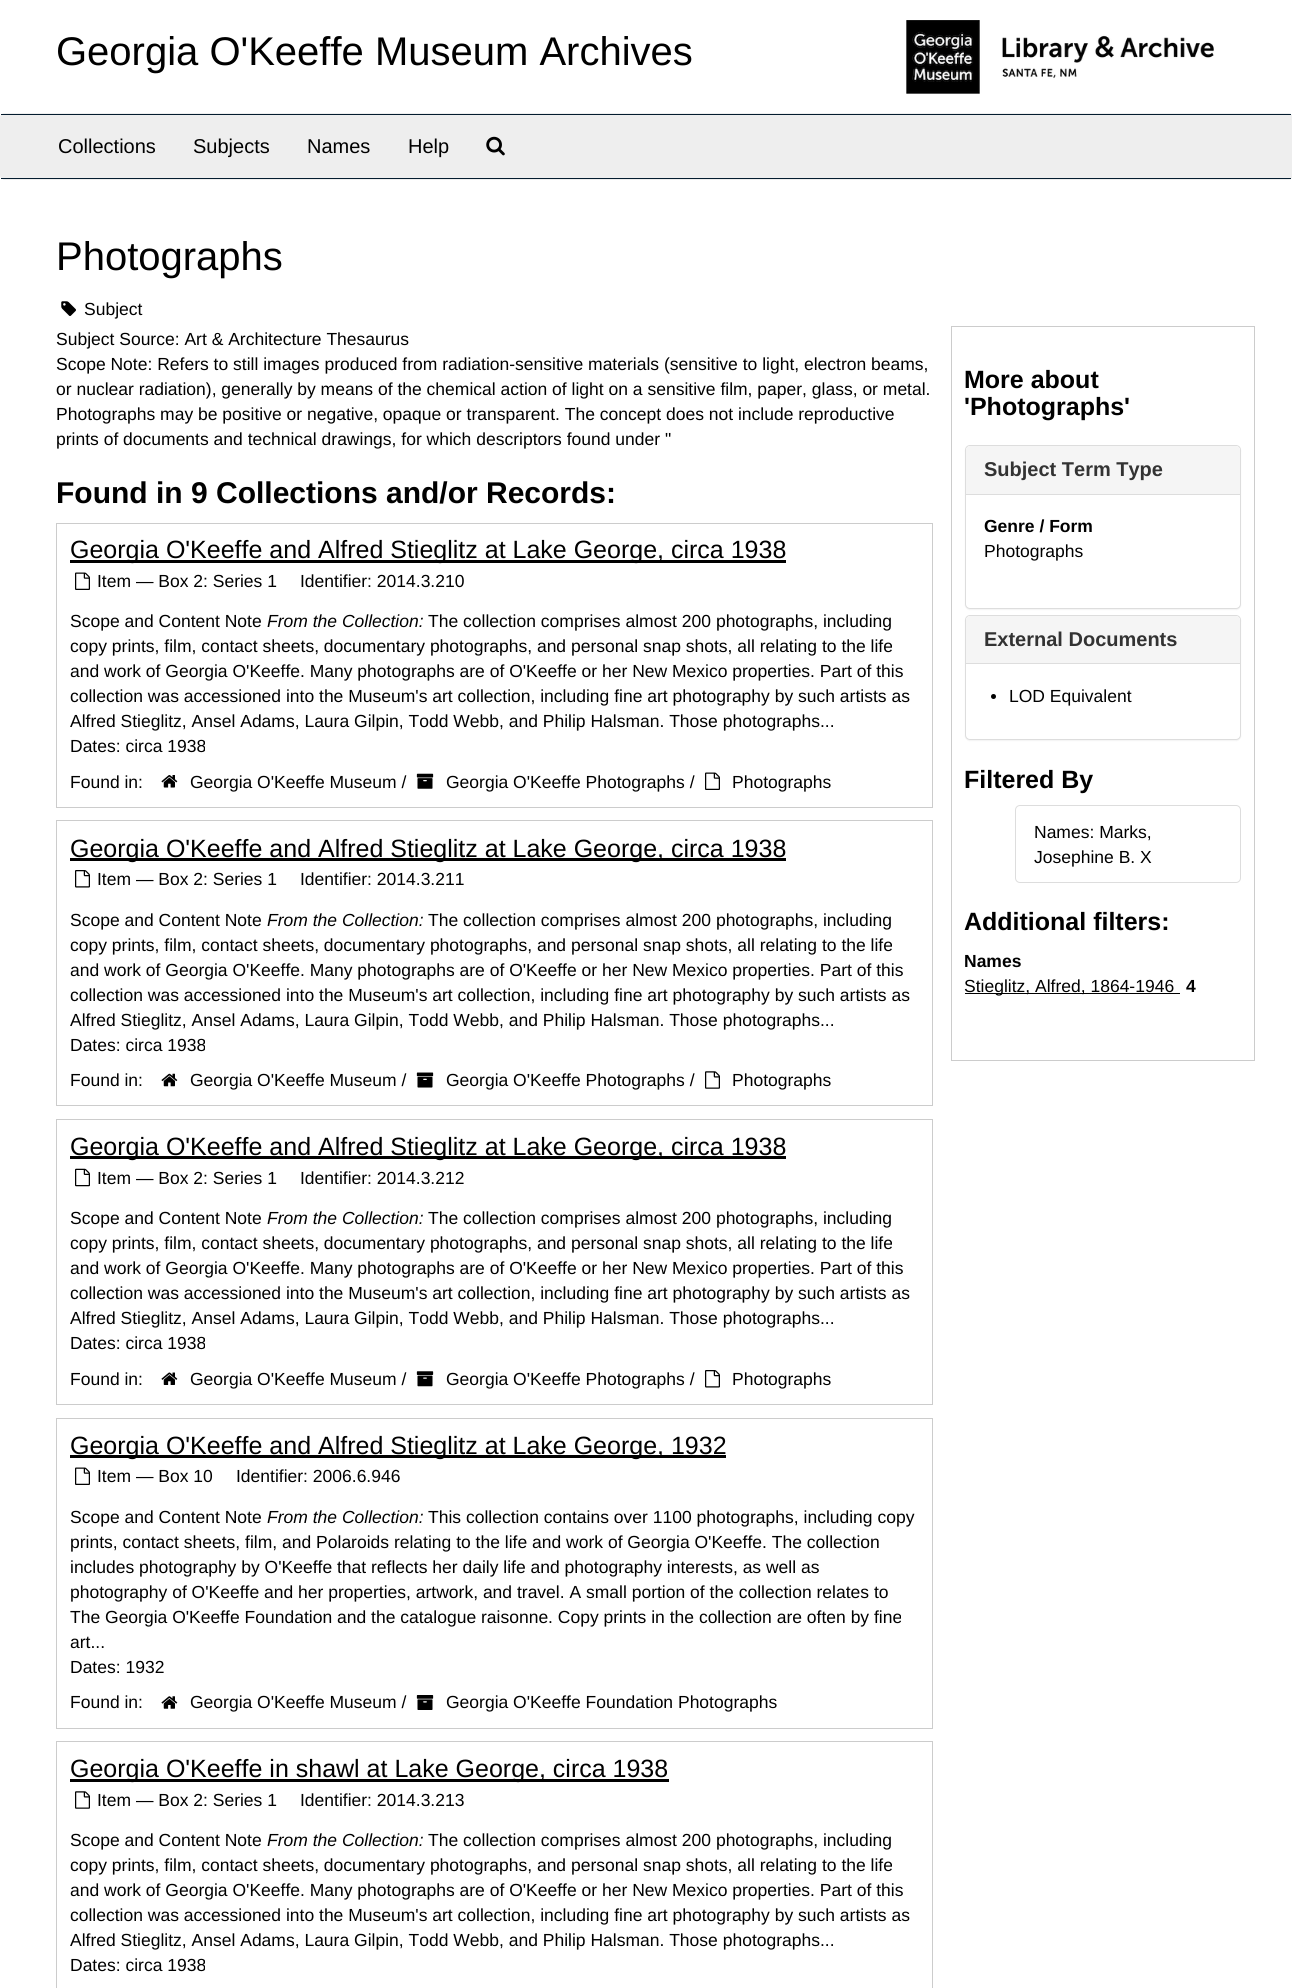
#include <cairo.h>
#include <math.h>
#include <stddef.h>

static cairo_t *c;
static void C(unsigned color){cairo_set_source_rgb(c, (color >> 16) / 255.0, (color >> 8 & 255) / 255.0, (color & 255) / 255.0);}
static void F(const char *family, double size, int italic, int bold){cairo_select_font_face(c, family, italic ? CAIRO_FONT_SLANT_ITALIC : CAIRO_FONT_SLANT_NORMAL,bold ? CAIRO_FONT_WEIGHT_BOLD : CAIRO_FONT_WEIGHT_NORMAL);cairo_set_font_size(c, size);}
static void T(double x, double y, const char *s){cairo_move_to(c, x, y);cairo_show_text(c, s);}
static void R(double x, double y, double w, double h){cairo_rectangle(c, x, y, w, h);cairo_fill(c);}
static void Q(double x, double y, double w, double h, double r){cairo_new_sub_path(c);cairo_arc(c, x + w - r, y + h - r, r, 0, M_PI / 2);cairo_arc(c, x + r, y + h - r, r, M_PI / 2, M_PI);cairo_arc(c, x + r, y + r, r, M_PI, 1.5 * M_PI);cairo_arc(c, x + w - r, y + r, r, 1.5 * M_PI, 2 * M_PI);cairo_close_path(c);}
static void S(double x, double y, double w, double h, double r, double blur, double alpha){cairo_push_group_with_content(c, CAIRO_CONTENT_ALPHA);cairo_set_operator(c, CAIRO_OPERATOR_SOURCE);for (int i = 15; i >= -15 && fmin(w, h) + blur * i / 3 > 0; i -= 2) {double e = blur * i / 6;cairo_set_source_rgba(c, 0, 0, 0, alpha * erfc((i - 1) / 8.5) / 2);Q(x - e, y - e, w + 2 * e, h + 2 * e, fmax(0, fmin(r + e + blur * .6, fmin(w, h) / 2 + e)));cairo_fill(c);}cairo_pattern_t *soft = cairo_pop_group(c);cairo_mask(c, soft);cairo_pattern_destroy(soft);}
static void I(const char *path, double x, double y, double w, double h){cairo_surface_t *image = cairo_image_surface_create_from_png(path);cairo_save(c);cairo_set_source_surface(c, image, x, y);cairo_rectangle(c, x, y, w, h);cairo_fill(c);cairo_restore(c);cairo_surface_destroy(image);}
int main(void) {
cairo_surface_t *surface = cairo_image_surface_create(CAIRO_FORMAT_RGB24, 1292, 1988);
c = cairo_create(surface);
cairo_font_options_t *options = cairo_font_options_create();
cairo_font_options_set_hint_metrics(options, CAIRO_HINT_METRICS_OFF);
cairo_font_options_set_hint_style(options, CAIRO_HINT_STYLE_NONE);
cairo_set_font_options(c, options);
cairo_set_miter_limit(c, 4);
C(0xffffff);
cairo_paint(c);
F("Liberation Sans",40,0,0);
C(0x000000);
T(56,65,"Georgia O'Keeffe Museum Archives");
I("1.png",906,20,308,74);
C(0xeeeeee);
Q(.5,113.5,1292,66,4.5);
cairo_fill_preserve(c);
cairo_set_line_width(c,1);
cairo_stroke(c);
C(0x041c2f);
R(1,114,1290,1);
R(1,178,1290,1);
F("Liberation Sans",20,0,0);
C(0x000000);
T(58,153,"Collections");
T(193,153,"Subjects");
T(307,153,"Names");
T(408,153,"Help");
I("2.png",486,136,19,20);
F("Liberation Sans",40,0,0);
T(56,270,"Photographs");
I("3.png",61,301,15,15);
F("Liberation Sans",17.5,0,0);
T(84,315,"Subject");
T(56,345,"Subject Source: Art & Architecture Thesaurus");
T(56,370,"Scope Note: Refers to still images produced from radiation-sensitive materials (sensitive to light, electron beams,");
T(56,395,"or nuclear radiation), generally by means of the chemical action of light on a sensitive film, paper, glass, or metal.");
T(56,420,"Photographs may be positive or negative, opaque or transparent. The concept does not include reproductive");
T(56,445,"prints of documents and technical drawings, for which descriptors found under \"");
F("Liberation Sans",30,0,1);
T(56,503,"Found in 9 Collections and/or Records:");
cairo_rectangle(c,56.5,523.5,876,284);
C(0xcccccc);
cairo_stroke(c);
C(0x000000);
R(70,560,716,3);
F("Liberation Sans",25,0,0);
T(70,558,"Georgia O'Keeffe and Alfred Stieglitz at Lake George, circa 1938");
I("4.png",75,572,15,18);
F("Liberation Sans",17.5,0,0);
T(97,587,"Item — Box 2: Series 1");
T(300,587,"Identifier: 2014.3.210");
T(70,627,"Scope and Content Note");
F("Liberation Sans",17.5,1,0);
T(267,627,"From the Collection:");
F("Liberation Sans",17.5,0,0);
T(428,627,"The collection comprises almost 200 photographs, including");
T(70,652,"copy prints, film, contact sheets, documentary photographs, and personal snap shots, all relating to the life");
T(70,677,"and work of Georgia O'Keeffe. Many photographs are of O'Keeffe or her New Mexico properties. Part of this");
T(70,702,"collection was accessioned into the Museum's art collection, including fine art photography by such artists as");
T(70,727,"Alfred Stieglitz, Ansel Adams, Laura Gilpin, Todd Webb, and Philip Halsman. Those photographs...");
T(70,752,"Dates: circa 1938");
T(70,788,"Found in:");
I("5.png",161,775,17,13);
T(190,788,"Georgia O'Keeffe Museum /");
I("6.png",416,773,18,16);
T(446,788,"Georgia O'Keeffe Photographs /");
I("4.png",705,772,15,18);
T(732,788,"Photographs");
cairo_rectangle(c,56.5,820.5,876,285);
C(0xcccccc);
cairo_stroke(c);
C(0x000000);
R(70,858,716,3);
F("Liberation Sans",25,0,0);
T(70,857,"Georgia O'Keeffe and Alfred Stieglitz at Lake George, circa 1938");
I("7.png",75,870,15,18);
F("Liberation Sans",17.5,0,0);
T(97,885,"Item — Box 2: Series 1");
T(300,885,"Identifier: 2014.3.211");
T(70,926,"Scope and Content Note");
F("Liberation Sans",17.5,1,0);
T(267,926,"From the Collection:");
F("Liberation Sans",17.5,0,0);
T(428,926,"The collection comprises almost 200 photographs, including");
T(70,951,"copy prints, film, contact sheets, documentary photographs, and personal snap shots, all relating to the life");
T(70,976,"and work of Georgia O'Keeffe. Many photographs are of O'Keeffe or her New Mexico properties. Part of this");
T(70,1001,"collection was accessioned into the Museum's art collection, including fine art photography by such artists as");
T(70,1026,"Alfred Stieglitz, Ansel Adams, Laura Gilpin, Todd Webb, and Philip Halsman. Those photographs...");
T(70,1051,"Dates: circa 1938");
T(70,1086,"Found in:");
I("8.png",161,1073,17,14);
T(190,1086,"Georgia O'Keeffe Museum /");
I("9.png",416,1072,18,16);
T(446,1086,"Georgia O'Keeffe Photographs /");
I("10.png",705,1071,15,18);
T(732,1086,"Photographs");
cairo_rectangle(c,56.5,1119.5,876,285);
C(0xcccccc);
cairo_stroke(c);
C(0x000000);
R(70,1156,716,3);
F("Liberation Sans",25,0,0);
T(70,1155,"Georgia O'Keeffe and Alfred Stieglitz at Lake George, circa 1938");
I("11.png",75,1168,15,19);
F("Liberation Sans",17.5,0,0);
T(97,1184,"Item — Box 2: Series 1");
T(300,1184,"Identifier: 2014.3.212");
T(70,1224,"Scope and Content Note");
F("Liberation Sans",17.5,1,0);
T(267,1224,"From the Collection:");
F("Liberation Sans",17.5,0,0);
T(428,1224,"The collection comprises almost 200 photographs, including");
T(70,1249,"copy prints, film, contact sheets, documentary photographs, and personal snap shots, all relating to the life");
T(70,1274,"and work of Georgia O'Keeffe. Many photographs are of O'Keeffe or her New Mexico properties. Part of this");
T(70,1299,"collection was accessioned into the Museum's art collection, including fine art photography by such artists as");
T(70,1324,"Alfred Stieglitz, Ansel Adams, Laura Gilpin, Todd Webb, and Philip Halsman. Those photographs...");
T(70,1349,"Dates: circa 1938");
T(70,1385,"Found in:");
I("12.png",161,1372,17,13);
T(190,1385,"Georgia O'Keeffe Museum /");
I("13.png",416,1371,18,16);
T(446,1385,"Georgia O'Keeffe Photographs /");
I("7.png",705,1370,15,18);
T(732,1385,"Photographs");
cairo_rectangle(c,56.5,1418.5,876,310);
C(0xcccccc);
cairo_stroke(c);
C(0x000000);
R(70,1455,656,3);
F("Liberation Sans",25,0,0);
T(70,1454,"Georgia O'Keeffe and Alfred Stieglitz at Lake George, 1932");
I("4.png",75,1467,15,18);
F("Liberation Sans",17.5,0,0);
T(97,1482,"Item — Box 10");
T(236,1482,"Identifier: 2006.6.946");
T(70,1523,"Scope and Content Note");
F("Liberation Sans",17.5,1,0);
T(267,1523,"From the Collection:");
F("Liberation Sans",17.5,0,0);
T(428,1523,"This collection contains over 1100 photographs, including copy");
T(70,1548,"prints, contact sheets, film, and Polaroids relating to the life and work of Georgia O'Keeffe. The collection");
T(70,1573,"includes photography by O'Keeffe that reflects her daily life and photography interests, as well as");
T(70,1598,"photography of O'Keeffe and her properties, artwork, and travel. A small portion of the collection relates to");
T(70,1623,"The Georgia O'Keeffe Foundation and the catalogue raisonne. Copy prints in the collection are often by fine");
T(70,1648,"art...");
T(70,1673,"Dates: 1932");
T(70,1708,"Found in:");
I("14.png",161,1696,17,13);
T(190,1708,"Georgia O'Keeffe Museum /");
I("15.png",416,1695,18,15);
T(446,1708,"Georgia O'Keeffe Foundation Photographs");
cairo_rectangle(c,56.5,1741.5,876,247);
C(0xcccccc);
cairo_stroke(c);
C(0x000000);
R(70,1779,599,3);
F("Liberation Sans",25,0,0);
T(70,1777,"Georgia O'Keeffe in shawl at Lake George, circa 1938");
I("10.png",75,1791,15,18);
F("Liberation Sans",17.5,0,0);
T(97,1806,"Item — Box 2: Series 1");
T(300,1806,"Identifier: 2014.3.213");
T(70,1846,"Scope and Content Note");
F("Liberation Sans",17.5,1,0);
T(267,1846,"From the Collection:");
F("Liberation Sans",17.5,0,0);
T(428,1846,"The collection comprises almost 200 photographs, including");
T(70,1871,"copy prints, film, contact sheets, documentary photographs, and personal snap shots, all relating to the life");
T(70,1896,"and work of Georgia O'Keeffe. Many photographs are of O'Keeffe or her New Mexico properties. Part of this");
T(70,1921,"collection was accessioned into the Museum's art collection, including fine art photography by such artists as");
T(70,1946,"Alfred Stieglitz, Ansel Adams, Laura Gilpin, Todd Webb, and Philip Halsman. Those photographs...");
T(70,1971,"Dates: circa 1938");
cairo_rectangle(c,951.5,326.5,303,734);
C(0xcccccc);
cairo_stroke(c);
F("Liberation Sans",25,0,1);
C(0x000000);
T(964,388,"More about");
T(964,415,"'Photographs'");
C(0x000000);
S(965,446,276,164,5,.5,.05);
C(0xffffff);
Q(965.5,445.5,275,163,4.5);
cairo_fill_preserve(c);
C(0xdddddd);
cairo_stroke(c);
C(0xf5f5f5);
cairo_new_path(c);
cairo_move_to(c,970,446);
cairo_line_to(c,1236,446);
cairo_curve_to(c,1238,446,1240,448,1240,450);
cairo_line_to(c,1240,494);
cairo_line_to(c,966,494);
cairo_line_to(c,966,450);
cairo_curve_to(c,966,448,968,446,970,446);
cairo_close_path(c);
cairo_fill(c);
F("Liberation Sans",20,0,1);
C(0x333333);
T(984,476,"Subject Term Type");
C(0xdddddd);
R(966,494,274,1);
F("Liberation Sans",17.5,0,1);
C(0x000000);
T(984,532,"Genre / Form");
F("Liberation Sans",17.5,0,0);
T(984,557,"Photographs");
C(0x000000);
S(965,616,276,125,5,.5,.05);
C(0xffffff);
Q(965.5,615.5,275,124,4.5);
cairo_fill_preserve(c);
C(0xdddddd);
cairo_stroke(c);
C(0xf5f5f5);
cairo_new_path(c);
cairo_move_to(c,970,616);
cairo_line_to(c,1236,616);
cairo_curve_to(c,1238,616,1240,618,1240,620);
cairo_line_to(c,1240,663);
cairo_line_to(c,966,663);
cairo_line_to(c,966,620);
cairo_curve_to(c,966,618,968,616,970,616);
cairo_close_path(c);
cairo_fill(c);
F("Liberation Sans",20,0,1);
C(0x333333);
T(984,646,"External Documents");
C(0xdddddd);
R(966,663,274,1);
C(0x000000);
cairo_new_path(c);
cairo_arc(c,993.5,696.5,2.5,0,2 * M_PI);
cairo_fill(c);
F("Liberation Sans",17.5,0,0);
T(1009,702,"LOD Equivalent");
F("Liberation Sans",25,0,1);
T(964,788,"Filtered By");
Q(1015.5,805.5,225,77,4.5);
C(0xdddddd);
cairo_stroke(c);
F("Liberation Sans",17.5,0,0);
C(0x000000);
T(1034,838,"Names: Marks,");
T(1034,863,"Josephine B. X");
F("Liberation Sans",25,0,1);
T(964,930,"Additional filters:");
F("Liberation Sans",17.5,0,1);
T(964,967,"Names");
R(965,993,215,1);
F("Liberation Sans",17.5,0,0);
T(964,992,"Stieglitz, Alfred, 1864-1946");
F("Liberation Sans",17.5,0,1);
T(1186,992,"4");
cairo_surface_write_to_png(surface, "o.png");
cairo_font_options_destroy(options);
cairo_destroy(c);
cairo_surface_destroy(surface);
return 0;
}
